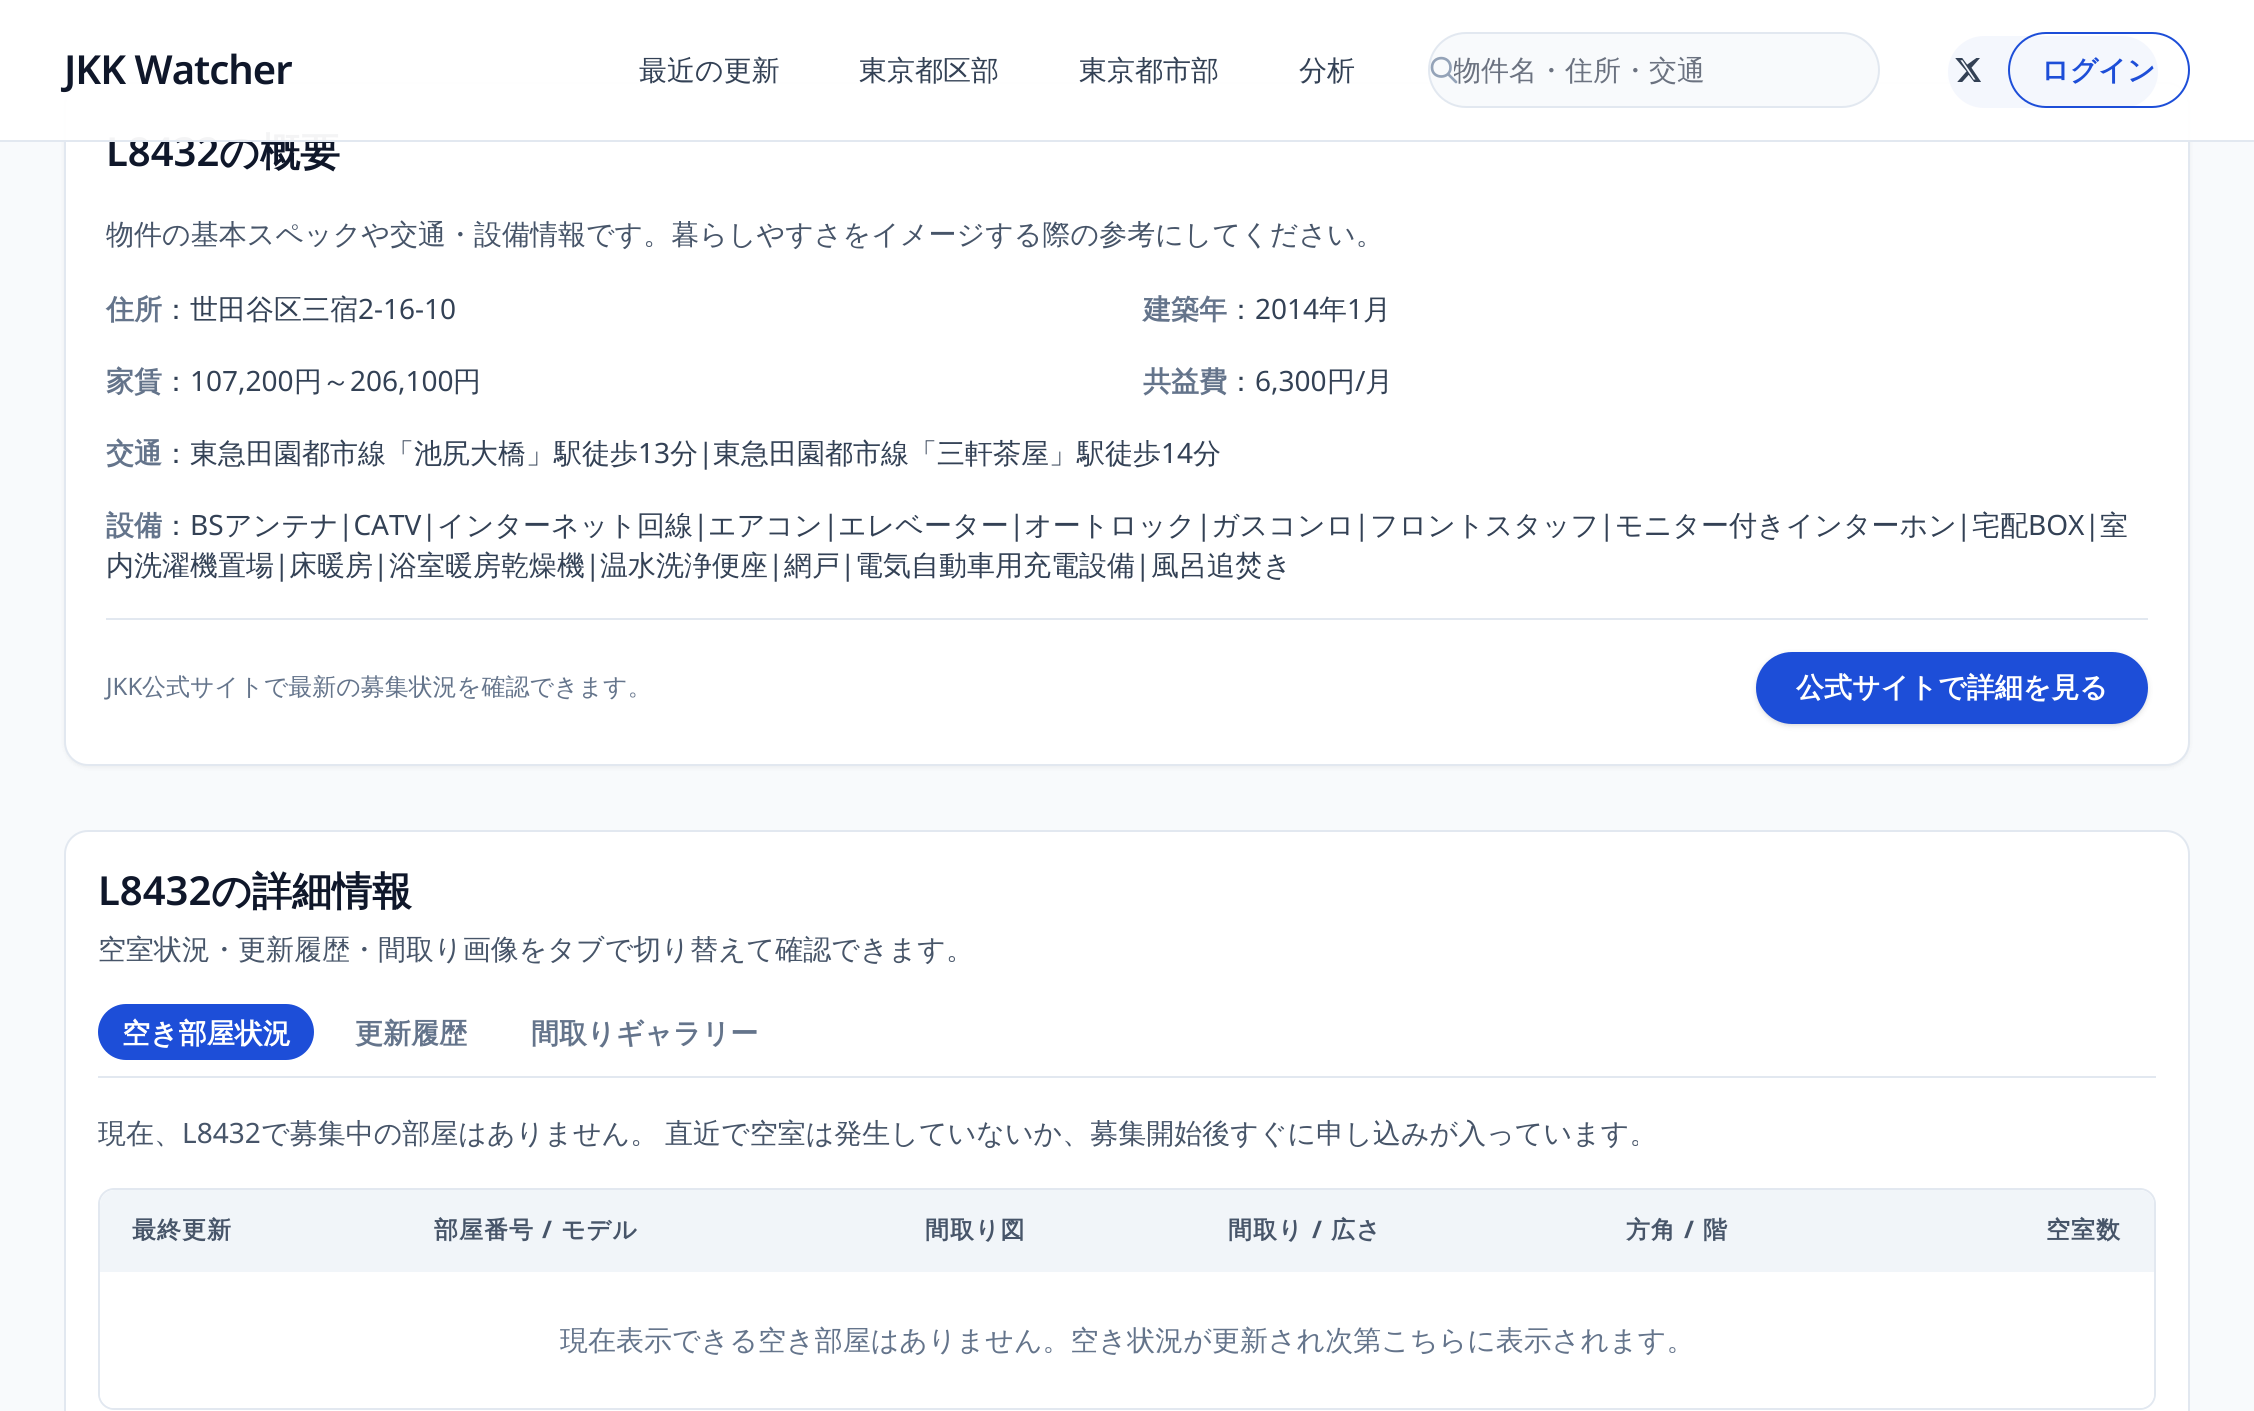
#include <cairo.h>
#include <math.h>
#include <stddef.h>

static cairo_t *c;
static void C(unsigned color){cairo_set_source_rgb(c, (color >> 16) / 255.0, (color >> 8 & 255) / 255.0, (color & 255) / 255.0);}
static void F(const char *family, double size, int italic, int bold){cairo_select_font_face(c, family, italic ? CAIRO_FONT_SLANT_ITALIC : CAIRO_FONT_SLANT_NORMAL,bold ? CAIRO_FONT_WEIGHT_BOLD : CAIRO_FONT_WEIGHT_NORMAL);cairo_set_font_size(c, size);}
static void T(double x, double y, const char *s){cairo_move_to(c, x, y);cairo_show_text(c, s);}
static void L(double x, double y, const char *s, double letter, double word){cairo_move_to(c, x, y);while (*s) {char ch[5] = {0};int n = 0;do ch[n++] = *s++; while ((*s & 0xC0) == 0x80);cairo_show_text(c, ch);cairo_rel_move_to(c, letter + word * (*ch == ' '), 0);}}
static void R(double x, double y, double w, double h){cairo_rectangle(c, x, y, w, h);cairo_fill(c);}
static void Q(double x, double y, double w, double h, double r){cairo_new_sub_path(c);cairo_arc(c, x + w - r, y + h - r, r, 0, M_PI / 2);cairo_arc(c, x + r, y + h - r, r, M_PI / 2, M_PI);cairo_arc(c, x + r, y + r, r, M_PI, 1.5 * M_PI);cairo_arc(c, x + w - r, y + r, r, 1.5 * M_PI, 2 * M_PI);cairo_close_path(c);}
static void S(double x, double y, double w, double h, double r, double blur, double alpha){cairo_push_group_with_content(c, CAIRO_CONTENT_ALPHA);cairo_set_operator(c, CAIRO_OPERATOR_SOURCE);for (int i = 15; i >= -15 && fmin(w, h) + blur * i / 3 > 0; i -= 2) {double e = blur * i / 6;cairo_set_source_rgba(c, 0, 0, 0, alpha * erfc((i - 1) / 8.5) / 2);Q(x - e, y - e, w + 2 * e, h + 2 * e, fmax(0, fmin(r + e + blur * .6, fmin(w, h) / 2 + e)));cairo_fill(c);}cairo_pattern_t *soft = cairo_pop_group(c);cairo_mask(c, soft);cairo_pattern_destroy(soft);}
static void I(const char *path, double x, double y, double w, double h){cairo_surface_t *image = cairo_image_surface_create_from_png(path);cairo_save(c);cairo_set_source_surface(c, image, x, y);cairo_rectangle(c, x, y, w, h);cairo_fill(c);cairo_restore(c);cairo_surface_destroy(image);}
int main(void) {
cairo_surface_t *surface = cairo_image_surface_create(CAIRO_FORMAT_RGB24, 2254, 1411);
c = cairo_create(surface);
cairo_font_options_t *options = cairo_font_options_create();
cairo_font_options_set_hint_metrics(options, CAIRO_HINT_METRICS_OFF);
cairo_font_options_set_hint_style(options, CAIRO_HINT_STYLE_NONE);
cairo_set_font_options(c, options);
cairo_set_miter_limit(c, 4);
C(0xf8fafc);
cairo_paint(c);
C(0x000000);
S(64,84,2126,684,24,2,.05);
C(0xffffff);
Q(65,83,2124,682,23);
cairo_fill_preserve(c);
C(0xe2e8f0);
cairo_stroke(c);
C(0x000000);
S(1948,38,210,72,36,2,.05);
C(0x1d4ed8);
Q(1948,36,210,72,36);
cairo_fill(c);
F("Noto Sans SemiBold",40,0,0);
C(0x0f172a);
T(106,166,"L8432");
F("WenQuanYi Zen Hei",40,0,1);
T(219,166,"の概要");
cairo_set_source_rgba(c,1,1,1,0.95);
R(0,0,2254,140);
C(0xe2e8f0);
R(0,140,2254,2);
F("Noto Sans SemiBold",40,0,0);
C(0x0f172a);
L(64,84,"JKK Watcher",-1,0);
F("WenQuanYi Zen Hei Medium",28,0,0);
C(0x334155);
T(639,80,"最近の更新");
T(859,80,"東京都区部");
T(1079,80,"東京都市部");
T(1299,80,"分析");
C(0xf8fafc);
Q(1429,33,450,74,37);
cairo_fill_preserve(c);
C(0xe2e8f0);
cairo_stroke(c);
cairo_save(c);
cairo_rectangle(c,1454,50,400,40);
cairo_clip(c);
C(0x6b7280);
T(1453,80,"物件名・住所・交通");
cairo_restore(c);
cairo_new_path(c);
cairo_move_to(c,1456,82);
cairo_line_to(c,1448,74);
cairo_move_to(c,1450.5,67.5);
cairo_curve_to(c,1450.5,79.5,1432,79.5,1432,67.5);
cairo_curve_to(c,1432,55,1450.5,55,1450.5,67.5);
cairo_close_path(c);
C(0x94a3b8);
cairo_set_line_width(c,2.7);
cairo_set_line_cap(c,CAIRO_LINE_CAP_ROUND);
cairo_set_line_join(c,CAIRO_LINE_JOIN_ROUND);
cairo_stroke(c);
I("1.png",1955,58,26,24);
Q(2009,33,180,74,37);
C(0x1d4ed8);
cairo_set_line_width(c,2);
cairo_set_line_cap(c,CAIRO_LINE_CAP_BUTT);
cairo_set_line_join(c,CAIRO_LINE_JOIN_MITER);
cairo_stroke(c);
F("WenQuanYi Zen Hei",28,0,1);
T(2041,80,"ログイン");
F("WenQuanYi Zen Hei Medium",28,0,0);
C(0x475569);
T(106,244,"物件の基本スペックや交通・設備情報です。暮らしやすさをイメージする際の参考にしてください。");
F("WenQuanYi Zen Hei",28,0,1);
C(0x64748b);
T(106,319,"住所");
F("WenQuanYi Zen Hei Medium",28,0,0);
C(0x334155);
T(162,319,"：世田谷区三宿");
F("Noto Sans",28,0,0);
T(358,319,"2-16-10");
F("WenQuanYi Zen Hei",28,0,1);
C(0x64748b);
T(1143,319,"建築年");
F("WenQuanYi Zen Hei Medium",28,0,0);
C(0x334155);
T(1227,319,"：");
F("Noto Sans",28,0,0);
T(1255,319,"2014");
F("WenQuanYi Zen Hei Medium",28,0,0);
T(1319,319,"年");
F("Noto Sans",28,0,0);
T(1347,319,"1");
F("WenQuanYi Zen Hei Medium",28,0,0);
T(1363,319,"月");
F("WenQuanYi Zen Hei",28,0,1);
C(0x64748b);
T(106,391,"家賃");
F("WenQuanYi Zen Hei Medium",28,0,0);
C(0x334155);
T(162,391,"：");
F("Noto Sans",28,0,0);
T(190,391,"107,200");
F("WenQuanYi Zen Hei Medium",28,0,0);
T(294,391,"円～");
F("Noto Sans",28,0,0);
T(350,391,"206,100");
F("WenQuanYi Zen Hei Medium",28,0,0);
T(453,391,"円");
F("WenQuanYi Zen Hei",28,0,1);
C(0x64748b);
T(1143,391,"共益費");
F("WenQuanYi Zen Hei Medium",28,0,0);
C(0x334155);
T(1227,391,"：");
F("Noto Sans",28,0,0);
T(1255,391,"6,300");
F("WenQuanYi Zen Hei Medium",28,0,0);
T(1327,391,"円");
F("Noto Sans",28,0,0);
T(1355,391,"/");
F("WenQuanYi Zen Hei Medium",28,0,0);
T(1365,391,"月");
F("WenQuanYi Zen Hei",28,0,1);
C(0x64748b);
T(106,463,"交通");
F("WenQuanYi Zen Hei Medium",28,0,0);
C(0x334155);
T(162,463,"：東急田園都市線「池尻大橋」駅徒歩");
F("Noto Sans",28,0,0);
T(638,463,"13");
F("WenQuanYi Zen Hei Medium",28,0,0);
T(670,463,"分");
F("Noto Sans",28,0,0);
T(698,463,"|");
F("WenQuanYi Zen Hei Medium",28,0,0);
T(713,463,"東急田園都市線「三軒茶屋」駅徒歩");
F("Noto Sans",28,0,0);
T(1161,463,"14");
F("WenQuanYi Zen Hei Medium",28,0,0);
T(1193,463,"分");
F("WenQuanYi Zen Hei",28,0,1);
C(0x64748b);
T(106,535,"設備");
F("WenQuanYi Zen Hei Medium",28,0,0);
C(0x334155);
T(162,535,"：");
F("Noto Sans",28,0,0);
T(190,535,"BS");
F("WenQuanYi Zen Hei Medium",28,0,0);
T(224,535,"アンテナ");
F("Noto Sans",28,0,0);
T(338,535,"|CATV|");
F("WenQuanYi Zen Hei Medium",28,0,0);
T(437,535,"インターネット回線");
F("Noto Sans",28,0,0);
T(693,535,"|");
F("WenQuanYi Zen Hei Medium",28,0,0);
T(708,535,"エアコン");
F("Noto Sans",28,0,0);
T(823,535,"|");
F("WenQuanYi Zen Hei Medium",28,0,0);
T(838,535,"エレベーター");
F("Noto Sans",28,0,0);
T(1009,535,"|");
F("WenQuanYi Zen Hei Medium",28,0,0);
T(1024,535,"オートロック");
F("Noto Sans",28,0,0);
T(1196,535,"|");
F("WenQuanYi Zen Hei Medium",28,0,0);
T(1211,535,"ガスコンロ");
F("Noto Sans",28,0,0);
T(1354,535,"|");
F("WenQuanYi Zen Hei Medium",28,0,0);
T(1370,535,"フロントスタッフ");
F("Noto Sans",28,0,0);
T(1599,535,"|");
F("WenQuanYi Zen Hei Medium",28,0,0);
T(1615,535,"モニター付きインターホン");
F("Noto Sans",28,0,0);
T(1956,535,"|");
F("WenQuanYi Zen Hei Medium",28,0,0);
T(1972,535,"宅配");
F("Noto Sans",28,0,0);
T(2028,535,"BOX|");
F("WenQuanYi Zen Hei Medium",28,0,0);
T(2100,535,"室");
T(106,575,"内洗濯機置場");
F("Noto Sans",28,0,0);
T(274,575,"|");
F("WenQuanYi Zen Hei Medium",28,0,0);
T(289,575,"床暖房");
F("Noto Sans",28,0,0);
T(373,575,"|");
F("WenQuanYi Zen Hei Medium",28,0,0);
T(389,575,"浴室暖房乾燥機");
F("Noto Sans",28,0,0);
T(585,575,"|");
F("WenQuanYi Zen Hei Medium",28,0,0);
T(600,575,"温水洗浄便座");
F("Noto Sans",28,0,0);
T(768,575,"|");
F("WenQuanYi Zen Hei Medium",28,0,0);
T(784,575,"網戸");
F("Noto Sans",28,0,0);
T(840,575,"|");
F("WenQuanYi Zen Hei Medium",28,0,0);
T(855,575,"電気自動車用充電設備");
F("Noto Sans",28,0,0);
T(1135,575,"|");
F("WenQuanYi Zen Hei Medium",28,0,0);
T(1151,575,"風呂追焚き");
C(0xe2e8f0);
R(106,618,2042,2);
F("Noto Sans",24,0,0);
C(0x64748b);
T(106,695,"JKK");
F("WenQuanYi Zen Hei Medium",24,0,0);
T(142,695,"公式サイトで最新の募集状況を確認できます。");
C(0x000000);
S(1758,656,388,68,34,2,.1);
S(1756,654,392,72,36,3,.1);
C(0x1d4ed8);
Q(1756,652,392,72,36);
cairo_fill(c);
F("WenQuanYi Zen Hei",28,0,1);
C(0xffffff);
T(1796,697,"公式サイトで詳細を見る");
Q(65,831,2124,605,23);
cairo_fill_preserve(c);
C(0xe2e8f0);
cairo_stroke(c);
F("Noto Sans SemiBold",40,0,0);
C(0x0f172a);
T(98,905,"L8432");
F("WenQuanYi Zen Hei",40,0,1);
T(211,905,"の詳細情報");
F("WenQuanYi Zen Hei Medium",28,0,0);
C(0x475569);
T(98,959,"空室状況・更新履歴・間取り画像をタブで切り替えて確認できます。");
C(0xe2e8f0);
R(98,1076,2058,2);
C(0x1d4ed8);
Q(98,1004,216,56,28);
cairo_fill(c);
F("WenQuanYi Zen Hei",28,0,1);
C(0xffffff);
T(122,1043,"空き部屋状況");
C(0x64748b);
T(355,1043,"更新履歴");
T(531,1043,"間取りギャラリー");
F("WenQuanYi Zen Hei Medium",28,0,0);
C(0x475569);
T(98,1143,"現在、");
F("Noto Sans",28,0,0);
T(182,1143,"L8432");
F("WenQuanYi Zen Hei Medium",28,0,0);
T(261,1143,"で募集中の部屋はありません。");
T(665,1143,"直近で空室は発生していないか、募集開始後すぐに申し込みが入っています。");
Q(99,1189,2056,220,15);
C(0xe2e8f0);
cairo_stroke(c);
C(0xf1f5f9);
cairo_new_path(c);
cairo_move_to(c,114,1190);
cairo_line_to(c,2140,1190);
cairo_curve_to(c,2147.5,1190,2154,1196.5,2154,1204);
cairo_line_to(c,2154,1272);
cairo_line_to(c,100,1272);
cairo_line_to(c,100,1204);
cairo_curve_to(c,100,1196.5,106.5,1190,114,1190);
cairo_close_path(c);
cairo_fill(c);
F("WenQuanYi Zen Hei",24,0,1);
C(0x475569);
L(132,1238,"最終更新",1,0);
L(434,1238,"部屋番号",1,0);
F("Noto Sans",24,0,1);
L(542,1238,"/",1,0);
F("WenQuanYi Zen Hei",24,0,1);
L(561,1238,"モデル",1,0);
L(925,1238,"間取り図",1,0);
L(1228,1238,"間取り",1,0);
F("Noto Sans",24,0,1);
L(1312,1238,"/",1,0);
F("WenQuanYi Zen Hei",24,0,1);
L(1331,1238,"広さ",1,0);
L(1626,1238,"方角",1,0);
F("Noto Sans",24,0,1);
L(1684,1238,"/",1,0);
F("WenQuanYi Zen Hei",24,0,1);
L(1703,1238,"階",1,0);
L(2046,1238,"空室数",1,0);
C(0xffffff);
cairo_new_path(c);
cairo_move_to(c,100,1274);
cairo_line_to(c,2154,1274);
cairo_line_to(c,2154,1394);
cairo_curve_to(c,2154,1401.5,2147.5,1408,2140,1408);
cairo_line_to(c,114,1408);
cairo_curve_to(c,106.5,1408,100,1401.5,100,1394);
cairo_close_path(c);
cairo_fill(c);
F("WenQuanYi Zen Hei Medium",28,0,0);
C(0x64748b);
T(560,1350,"現在表示できる空き部屋はありません。空き状況が更新され次第こちらに表示されます。");
cairo_surface_write_to_png(surface, "o.png");
cairo_font_options_destroy(options);
cairo_destroy(c);
cairo_surface_destroy(surface);
return 0;
}
